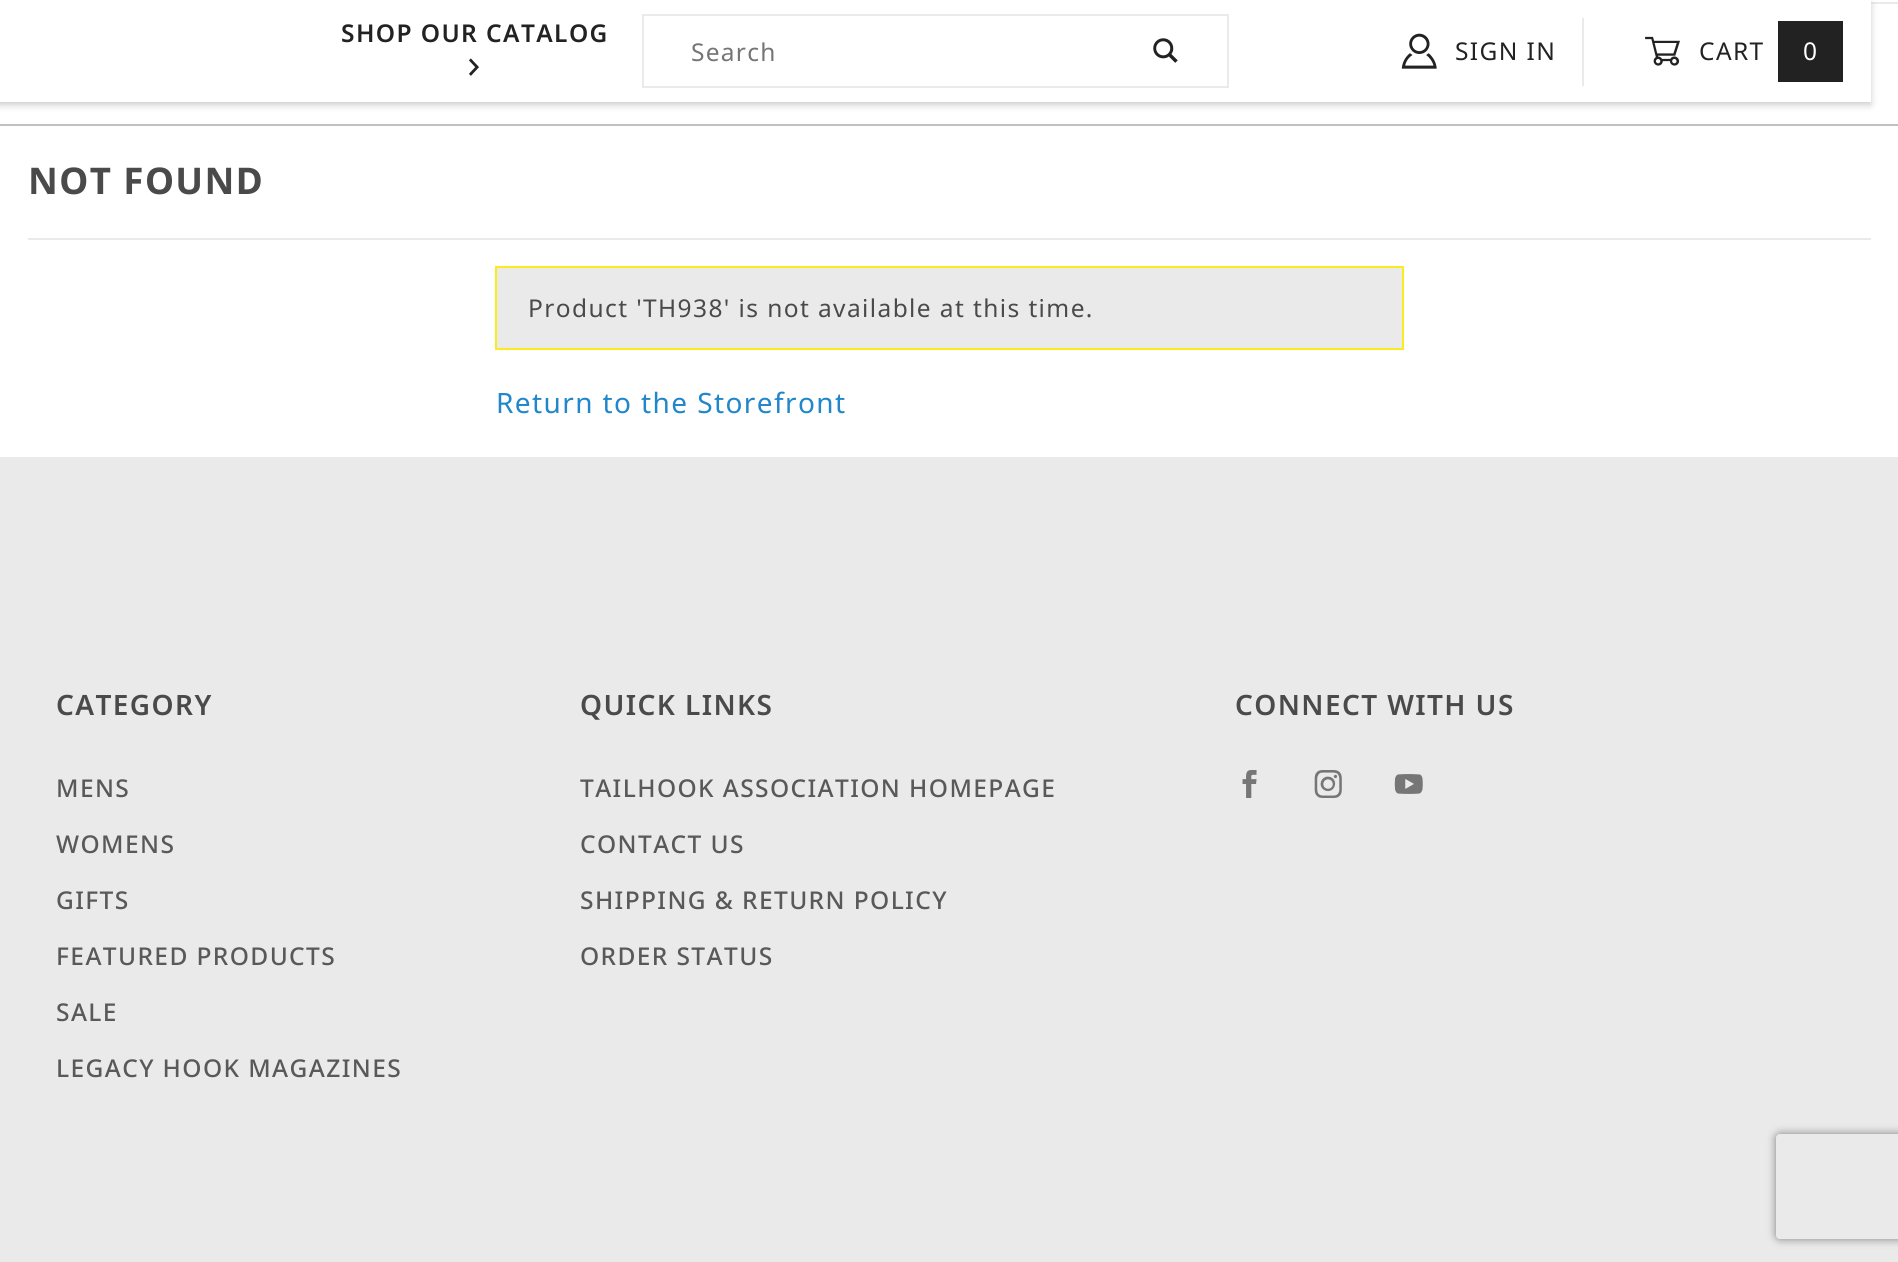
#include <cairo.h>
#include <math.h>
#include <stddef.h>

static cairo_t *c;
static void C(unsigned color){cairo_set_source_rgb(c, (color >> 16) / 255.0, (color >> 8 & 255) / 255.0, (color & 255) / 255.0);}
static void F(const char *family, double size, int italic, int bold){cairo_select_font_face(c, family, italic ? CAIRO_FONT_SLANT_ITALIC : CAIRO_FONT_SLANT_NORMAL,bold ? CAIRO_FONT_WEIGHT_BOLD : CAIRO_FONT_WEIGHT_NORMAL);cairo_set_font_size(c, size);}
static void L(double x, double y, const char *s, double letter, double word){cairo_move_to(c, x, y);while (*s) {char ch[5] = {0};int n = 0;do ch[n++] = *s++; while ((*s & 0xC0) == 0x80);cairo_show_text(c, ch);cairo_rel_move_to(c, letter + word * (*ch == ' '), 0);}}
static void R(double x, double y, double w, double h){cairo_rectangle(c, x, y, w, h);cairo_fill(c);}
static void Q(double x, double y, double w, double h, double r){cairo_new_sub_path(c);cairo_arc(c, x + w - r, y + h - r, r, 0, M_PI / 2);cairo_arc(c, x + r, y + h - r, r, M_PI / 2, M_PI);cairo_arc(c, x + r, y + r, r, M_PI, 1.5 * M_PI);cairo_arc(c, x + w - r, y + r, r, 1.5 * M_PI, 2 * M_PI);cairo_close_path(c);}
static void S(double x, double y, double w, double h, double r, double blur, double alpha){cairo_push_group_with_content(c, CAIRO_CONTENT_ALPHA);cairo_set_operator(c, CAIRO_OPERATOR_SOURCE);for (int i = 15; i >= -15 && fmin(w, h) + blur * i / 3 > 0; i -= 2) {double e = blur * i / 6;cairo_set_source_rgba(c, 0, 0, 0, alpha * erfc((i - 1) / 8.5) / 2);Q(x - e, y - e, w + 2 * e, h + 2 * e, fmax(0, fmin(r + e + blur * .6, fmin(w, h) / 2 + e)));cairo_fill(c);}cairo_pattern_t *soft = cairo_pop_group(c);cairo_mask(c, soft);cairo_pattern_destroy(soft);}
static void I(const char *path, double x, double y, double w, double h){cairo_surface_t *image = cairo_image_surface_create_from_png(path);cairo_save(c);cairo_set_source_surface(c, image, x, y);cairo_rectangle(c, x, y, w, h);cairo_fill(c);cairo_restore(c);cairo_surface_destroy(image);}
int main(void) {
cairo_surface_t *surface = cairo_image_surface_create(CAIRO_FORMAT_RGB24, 1898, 1262);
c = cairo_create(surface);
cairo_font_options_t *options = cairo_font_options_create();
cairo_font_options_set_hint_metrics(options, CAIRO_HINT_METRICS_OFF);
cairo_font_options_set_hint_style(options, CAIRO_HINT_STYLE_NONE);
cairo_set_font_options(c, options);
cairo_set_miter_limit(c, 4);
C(0xffffff);
cairo_paint(c);
C(0xeaeaea);
R(1871,2,27,2);
C(0x000000);
S(-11,4,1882,101,0,3.5,.2);
C(0xffffff);
R(0,0,1871,102);
F("Noto Sans SemiBold",24.5,0,0);
C(0x222222);
L(341,42,"SHOP OUR CATALOG",1.4,0);
F("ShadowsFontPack",18,0,0);
L(465,75,"3",1.4,0);
cairo_rectangle(c,643,15,585,72);
C(0xeaeaea);
cairo_stroke(c);
F("Noto Sans",24.5,0,0);
C(0x757575);
L(691,61,"Search",1.25,0);
I("1.png",1153,38,25,25);
C(0xeaeaea);
R(1582,18,2,68);
I("2.png",1401,33,36,36);
C(0x222222);
L(1455,60,"SIGN IN",1.4,0);
I("3.png",1645,36,35,30);
L(1699,60,"CART",1.4,0);
R(1778,21,65,61);
C(0xffffff);
L(1803,60,"0",1.4,0);
C(0xc0c0c0);
R(0,124,1898,2);
F("Noto Sans",36.75,0,1);
C(0x4a4a4a);
L(28,194,"NOT FOUND",1.4,0);
C(0xeaeaea);
R(28,238,1843,2);
cairo_rectangle(c,496,267,907,82);
cairo_fill_preserve(c);
C(0xf9ed1f);
cairo_stroke(c);
F("Noto Sans",24.5,0,0);
C(0x4a4a4a);
L(528,317,"Product 'TH938' is not available at this time.",1.4,0);
F("Noto Sans",28,0,0);
C(0x2186ca);
L(496,413,"Return to the Storefront",1.4,0);
C(0xeaeaea);
R(0,457,1898,805);
F("Noto Sans SemiBold",28,0,0);
C(0x4a4a4a);
L(56,715,"CATEGORY",1.4,0);
F("Noto Sans Medium",24.5,0,0);
C(0x595959);
L(56,797,"MENS",1.4,0);
L(56,853,"WOMENS",1.4,0);
L(56,909,"GIFTS",1.4,0);
L(56,965,"FEATURED PRODUCTS",1.4,0);
L(56,1021,"SALE",1.4,0);
L(56,1077,"LEGACY HOOK MAGAZINES",1.4,0);
F("Noto Sans SemiBold",28,0,0);
C(0x4a4a4a);
L(580,715,"QUICK LINKS",1.4,0);
F("Noto Sans Medium",24.5,0,0);
C(0x595959);
L(580,797,"TAILHOOK ASSOCIATION HOMEPAGE",1.4,0);
L(580,853,"CONTACT US",1.4,0);
L(580,909,"SHIPPING & RETURN POLICY",1.4,0);
L(580,965,"ORDER STATUS",1.4,0);
F("Noto Sans SemiBold",28,0,0);
C(0x4a4a4a);
L(1235,715,"CONNECT WITH US",1.4,0);
I("4.png",1242,770,15,28);
I("5.png",1314,770,28,28);
I("6.png",1394,774,29,20);
cairo_save(c);
cairo_set_fill_rule(c,CAIRO_FILL_RULE_EVEN_ODD);
cairo_new_path(c);
cairo_move_to(c,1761,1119);
cairo_line_to(c,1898,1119);
cairo_line_to(c,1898,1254);
cairo_line_to(c,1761,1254);
cairo_close_path(c);
cairo_move_to(c,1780,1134);
cairo_line_to(c,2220,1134);
cairo_curve_to(c,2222,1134,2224,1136,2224,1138);
cairo_line_to(c,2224,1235);
cairo_curve_to(c,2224,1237,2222,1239,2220,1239);
cairo_line_to(c,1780,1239);
cairo_curve_to(c,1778,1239,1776,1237,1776,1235);
cairo_line_to(c,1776,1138);
cairo_curve_to(c,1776,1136,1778,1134,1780,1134);
cairo_close_path(c);
cairo_clip(c);
C(0x808080);
S(1776,1134,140,105,4,4.5,1);
cairo_restore(c);
cairo_surface_write_to_png(surface, "o.png");
cairo_font_options_destroy(options);
cairo_destroy(c);
cairo_surface_destroy(surface);
return 0;
}
